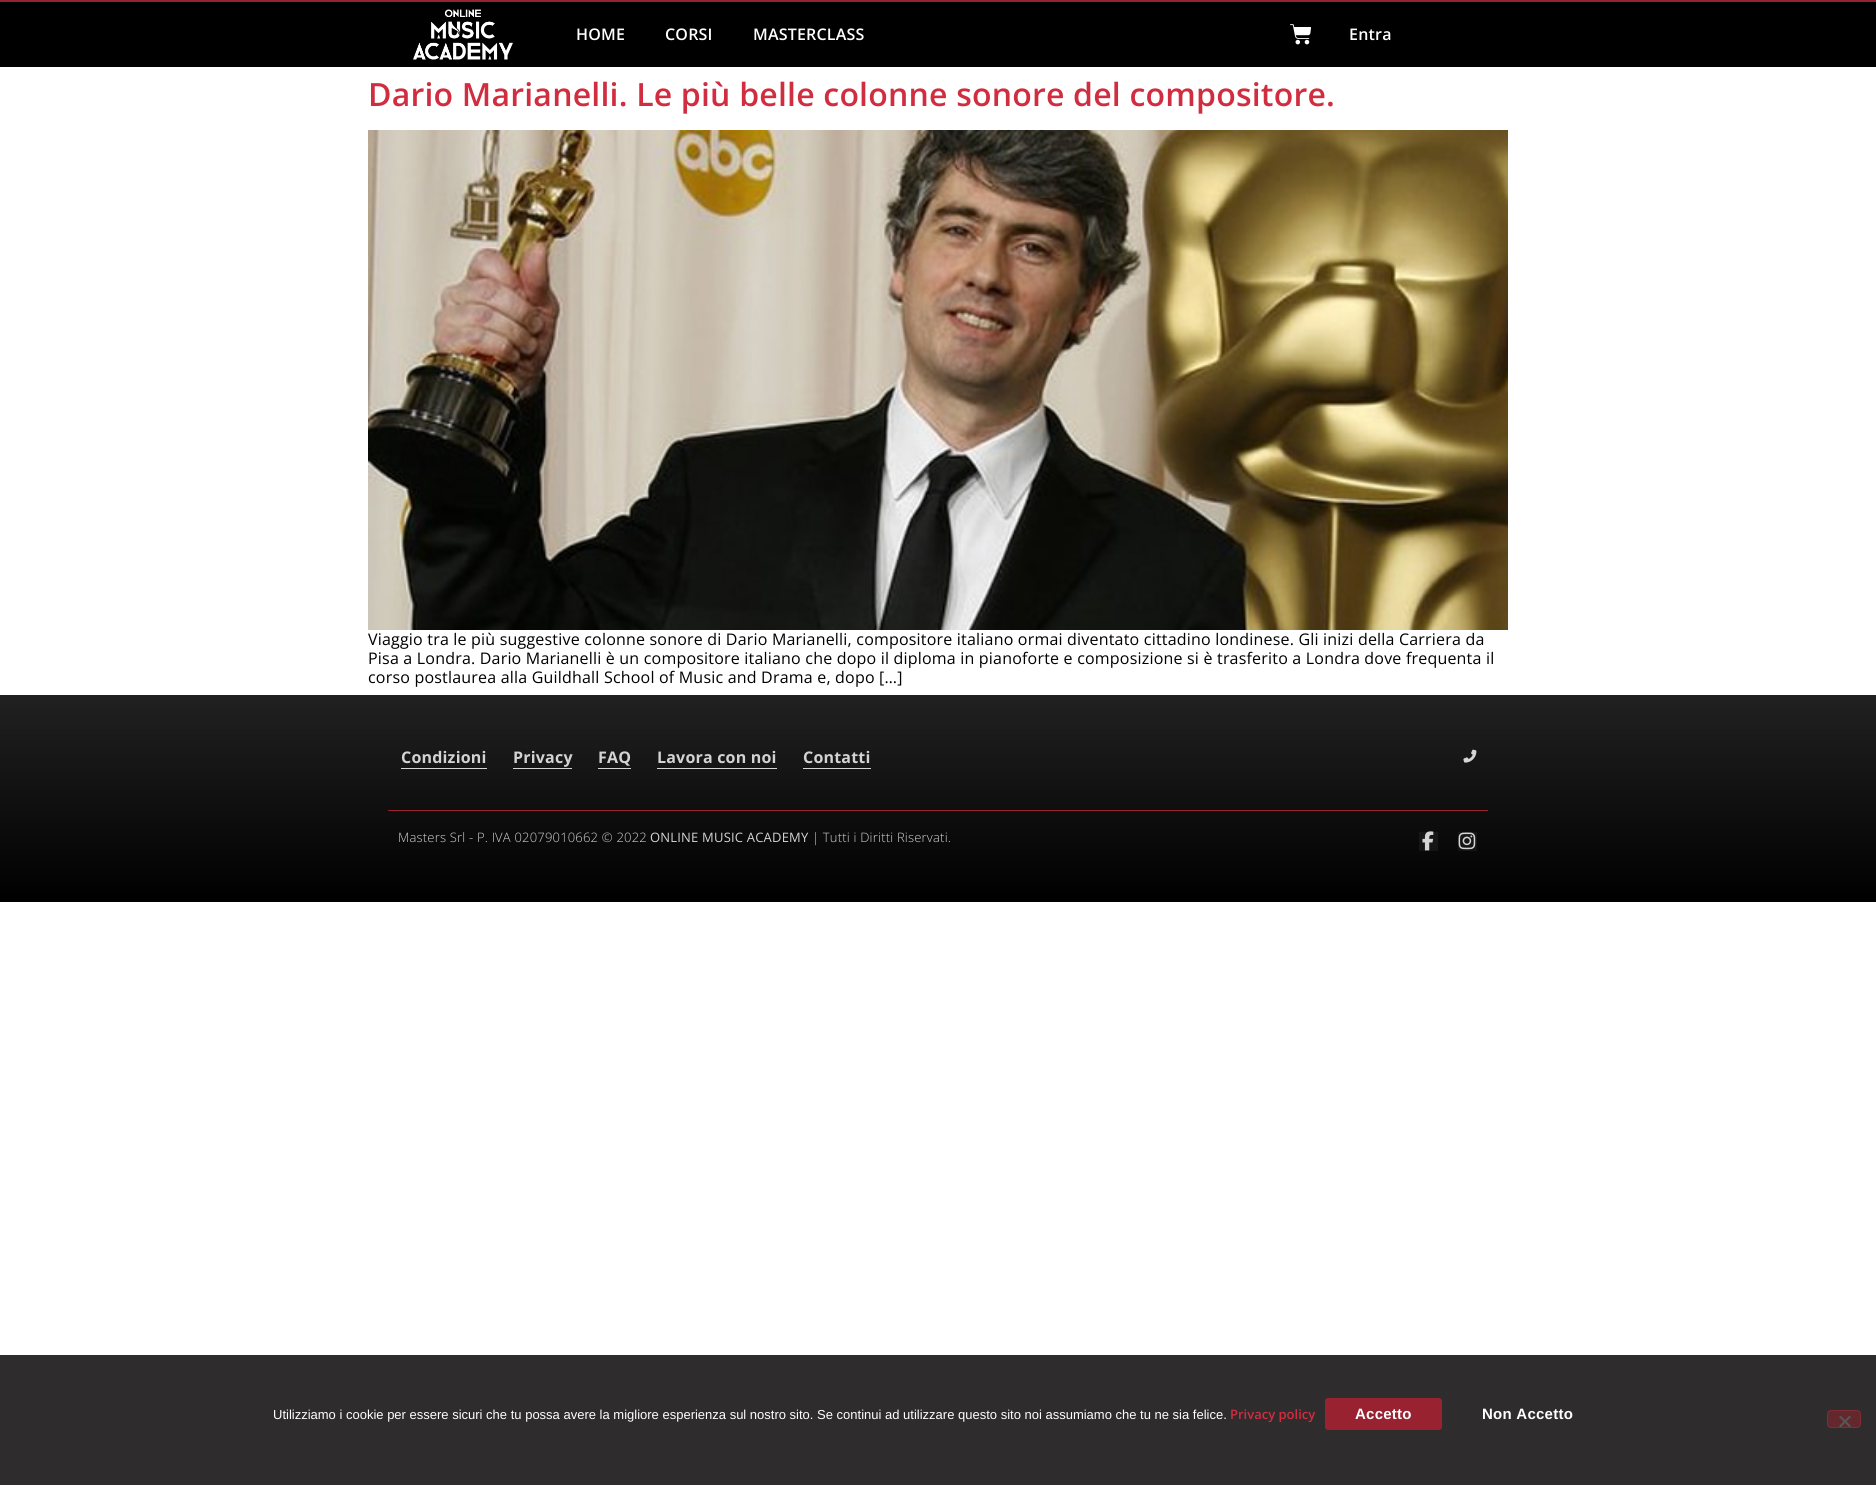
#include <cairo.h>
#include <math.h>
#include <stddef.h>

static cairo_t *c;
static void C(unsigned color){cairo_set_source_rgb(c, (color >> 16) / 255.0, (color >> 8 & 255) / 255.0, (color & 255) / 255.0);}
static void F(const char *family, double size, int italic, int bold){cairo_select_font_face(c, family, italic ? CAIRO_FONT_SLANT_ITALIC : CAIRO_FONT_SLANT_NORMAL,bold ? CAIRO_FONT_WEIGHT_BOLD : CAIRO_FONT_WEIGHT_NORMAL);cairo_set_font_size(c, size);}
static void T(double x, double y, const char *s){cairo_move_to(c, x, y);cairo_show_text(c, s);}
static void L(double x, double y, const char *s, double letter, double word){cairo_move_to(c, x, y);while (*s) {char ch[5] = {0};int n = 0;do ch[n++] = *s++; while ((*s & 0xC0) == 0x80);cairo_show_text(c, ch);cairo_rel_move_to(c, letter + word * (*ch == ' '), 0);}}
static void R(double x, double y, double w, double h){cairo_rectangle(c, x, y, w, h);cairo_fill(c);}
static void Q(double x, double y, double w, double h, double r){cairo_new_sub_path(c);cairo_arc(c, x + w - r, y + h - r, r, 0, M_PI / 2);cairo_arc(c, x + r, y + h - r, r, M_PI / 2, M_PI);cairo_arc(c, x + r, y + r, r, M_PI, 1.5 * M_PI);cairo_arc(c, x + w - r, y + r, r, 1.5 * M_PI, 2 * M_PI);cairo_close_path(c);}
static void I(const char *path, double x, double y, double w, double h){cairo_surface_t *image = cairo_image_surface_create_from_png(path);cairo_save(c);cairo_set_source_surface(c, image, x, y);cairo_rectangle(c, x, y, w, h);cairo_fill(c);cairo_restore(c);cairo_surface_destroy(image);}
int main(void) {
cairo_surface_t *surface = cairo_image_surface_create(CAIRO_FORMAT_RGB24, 1876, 1485);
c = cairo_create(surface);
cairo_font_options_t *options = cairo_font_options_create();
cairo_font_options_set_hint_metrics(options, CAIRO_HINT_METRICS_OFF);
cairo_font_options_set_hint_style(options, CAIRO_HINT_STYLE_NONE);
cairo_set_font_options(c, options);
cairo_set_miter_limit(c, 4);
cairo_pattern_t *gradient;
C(0xffffff);
cairo_paint(c);
C(0x000000);
R(0,2,1876,65);
C(0x982230);
R(0,0,1876,2);
I("1.png",413,9,100,51);
F("Open Sans SemiBold",16,0,0);
C(0xffffff);
L(576,40,"HOME",.2,0);
L(665,40,"CORSI",.2,0);
L(753,40,"MASTERCLASS",.2,0);
I("2.png",1290,24,22,21);
L(1349,40,"Entra",.2,0);
F("Open Sans SemiBold",32,0,0);
C(0xd12d40);
L(368,106,"Dario Marianelli. Le più belle colonne sonore del compositore.",.2,0);
I("3.png",368,130,1140,500);
F("Open Sans",16,0,0);
C(0x000000);
L(368,645,"Viaggio tra le più suggestive colonne sonore di Dario Marianelli, compositore italiano ormai diventato cittadino londinese. Gli inizi della Carriera da",.2,0);
L(368,664,"Pisa a Londra. Dario Marianelli è un compositore italiano che dopo il diploma in pianoforte e composizione si è trasferito a Londra dove frequenta il",.2,0);
L(368,683,"corso postlaurea alla Guildhall School of Music and Drama e, dopo […]",.2,0);
gradient = cairo_pattern_create_linear(938,695,938,902);
cairo_pattern_add_color_stop_rgba(gradient,0,0.129,0.129,0.129,1);
cairo_pattern_add_color_stop_rgba(gradient,1,0,0,0,1);
cairo_set_source(c,gradient);
cairo_pattern_destroy(gradient);
R(0,695,1876,207);
C(0x982230);
R(388,810,1100,1);
F("Open Sans",16,0,1);
C(0xd3d3d3);
L(401,763,"Condizioni",.2,0);
C(0xd5d5d5);
R(401,768,86,1);
C(0xd3d3d3);
L(513,763,"Privacy",.2,0);
C(0xd5d5d5);
R(513,768,59,1);
C(0xd3d3d3);
L(598,763,"FAQ",.2,0);
C(0xd5d5d5);
R(598,768,33,1);
C(0xd3d3d3);
L(657,763,"Lavora con noi",.2,0);
C(0xd5d5d5);
R(657,768,120,1);
C(0xd3d3d3);
L(803,763,"Contatti",.2,0);
C(0xd5d5d5);
R(803,768,68,1);
I("4.png",1463,749,14,14);
F("Open Sans Light",13,0,0);
C(0xd3d3d3);
L(398,842,"Masters Srl - P. IVA 02079010662 © 2022",.2,0);
F("Open Sans",13,0,0);
L(650,842,"ONLINE MUSIC ACADEMY",.2,0);
F("Open Sans Light",13,0,0);
L(812,842,"| Tutti i Diritti Riservati.",.2,0);
cairo_set_source_rgba(c,1,1,1,0.05);
R(1419,832,19,19);
I("5.png",1422,831,12,20);
R(1458,832,19,19);
I("6.png",1458,832,18,18);
C(0x2e2c2c);
R(0,1355,1876,130);
F("Liberation Sans",13,0,0);
C(0xffffff);
T(273,1419,"Utilizziamo i cookie per essere sicuri che tu possa avere la migliore esperienza sul nostro sito. Se continui ad utilizzare questo sito noi assumiamo che tu ne sia felice.");
F("Open Sans SemiBold",13,0,0);
C(0xd12d40);
T(1230,1419,"Privacy policy");
C(0x982230);
Q(1325,1398,117,32,3);
cairo_fill(c);
F("Liberation Sans",15,0,1);
C(0xffffff);
L(1355,1419,"Accetto",.25,0);
L(1482,1419,"Non Accetto",.25,0);
C(0x63272e);
Q(1827.5,1410.5,33,17,3.5);
cairo_fill_preserve(c);
C(0x802d36);
cairo_set_line_width(c,1);
cairo_stroke(c);
C(0x575656);
cairo_new_path(c);
cairo_move_to(c,1849.5,1415.5);
cairo_line_to(c,1851,1417);
cairo_line_to(c,1840.5,1427.5);
cairo_line_to(c,1839,1426);
cairo_close_path(c);
cairo_fill(c);
cairo_new_path(c);
cairo_move_to(c,1839,1417);
cairo_line_to(c,1840.5,1415.5);
cairo_line_to(c,1851,1426);
cairo_line_to(c,1849.5,1427.5);
cairo_close_path(c);
cairo_fill(c);
cairo_surface_write_to_png(surface, "o.png");
cairo_font_options_destroy(options);
cairo_destroy(c);
cairo_surface_destroy(surface);
return 0;
}
